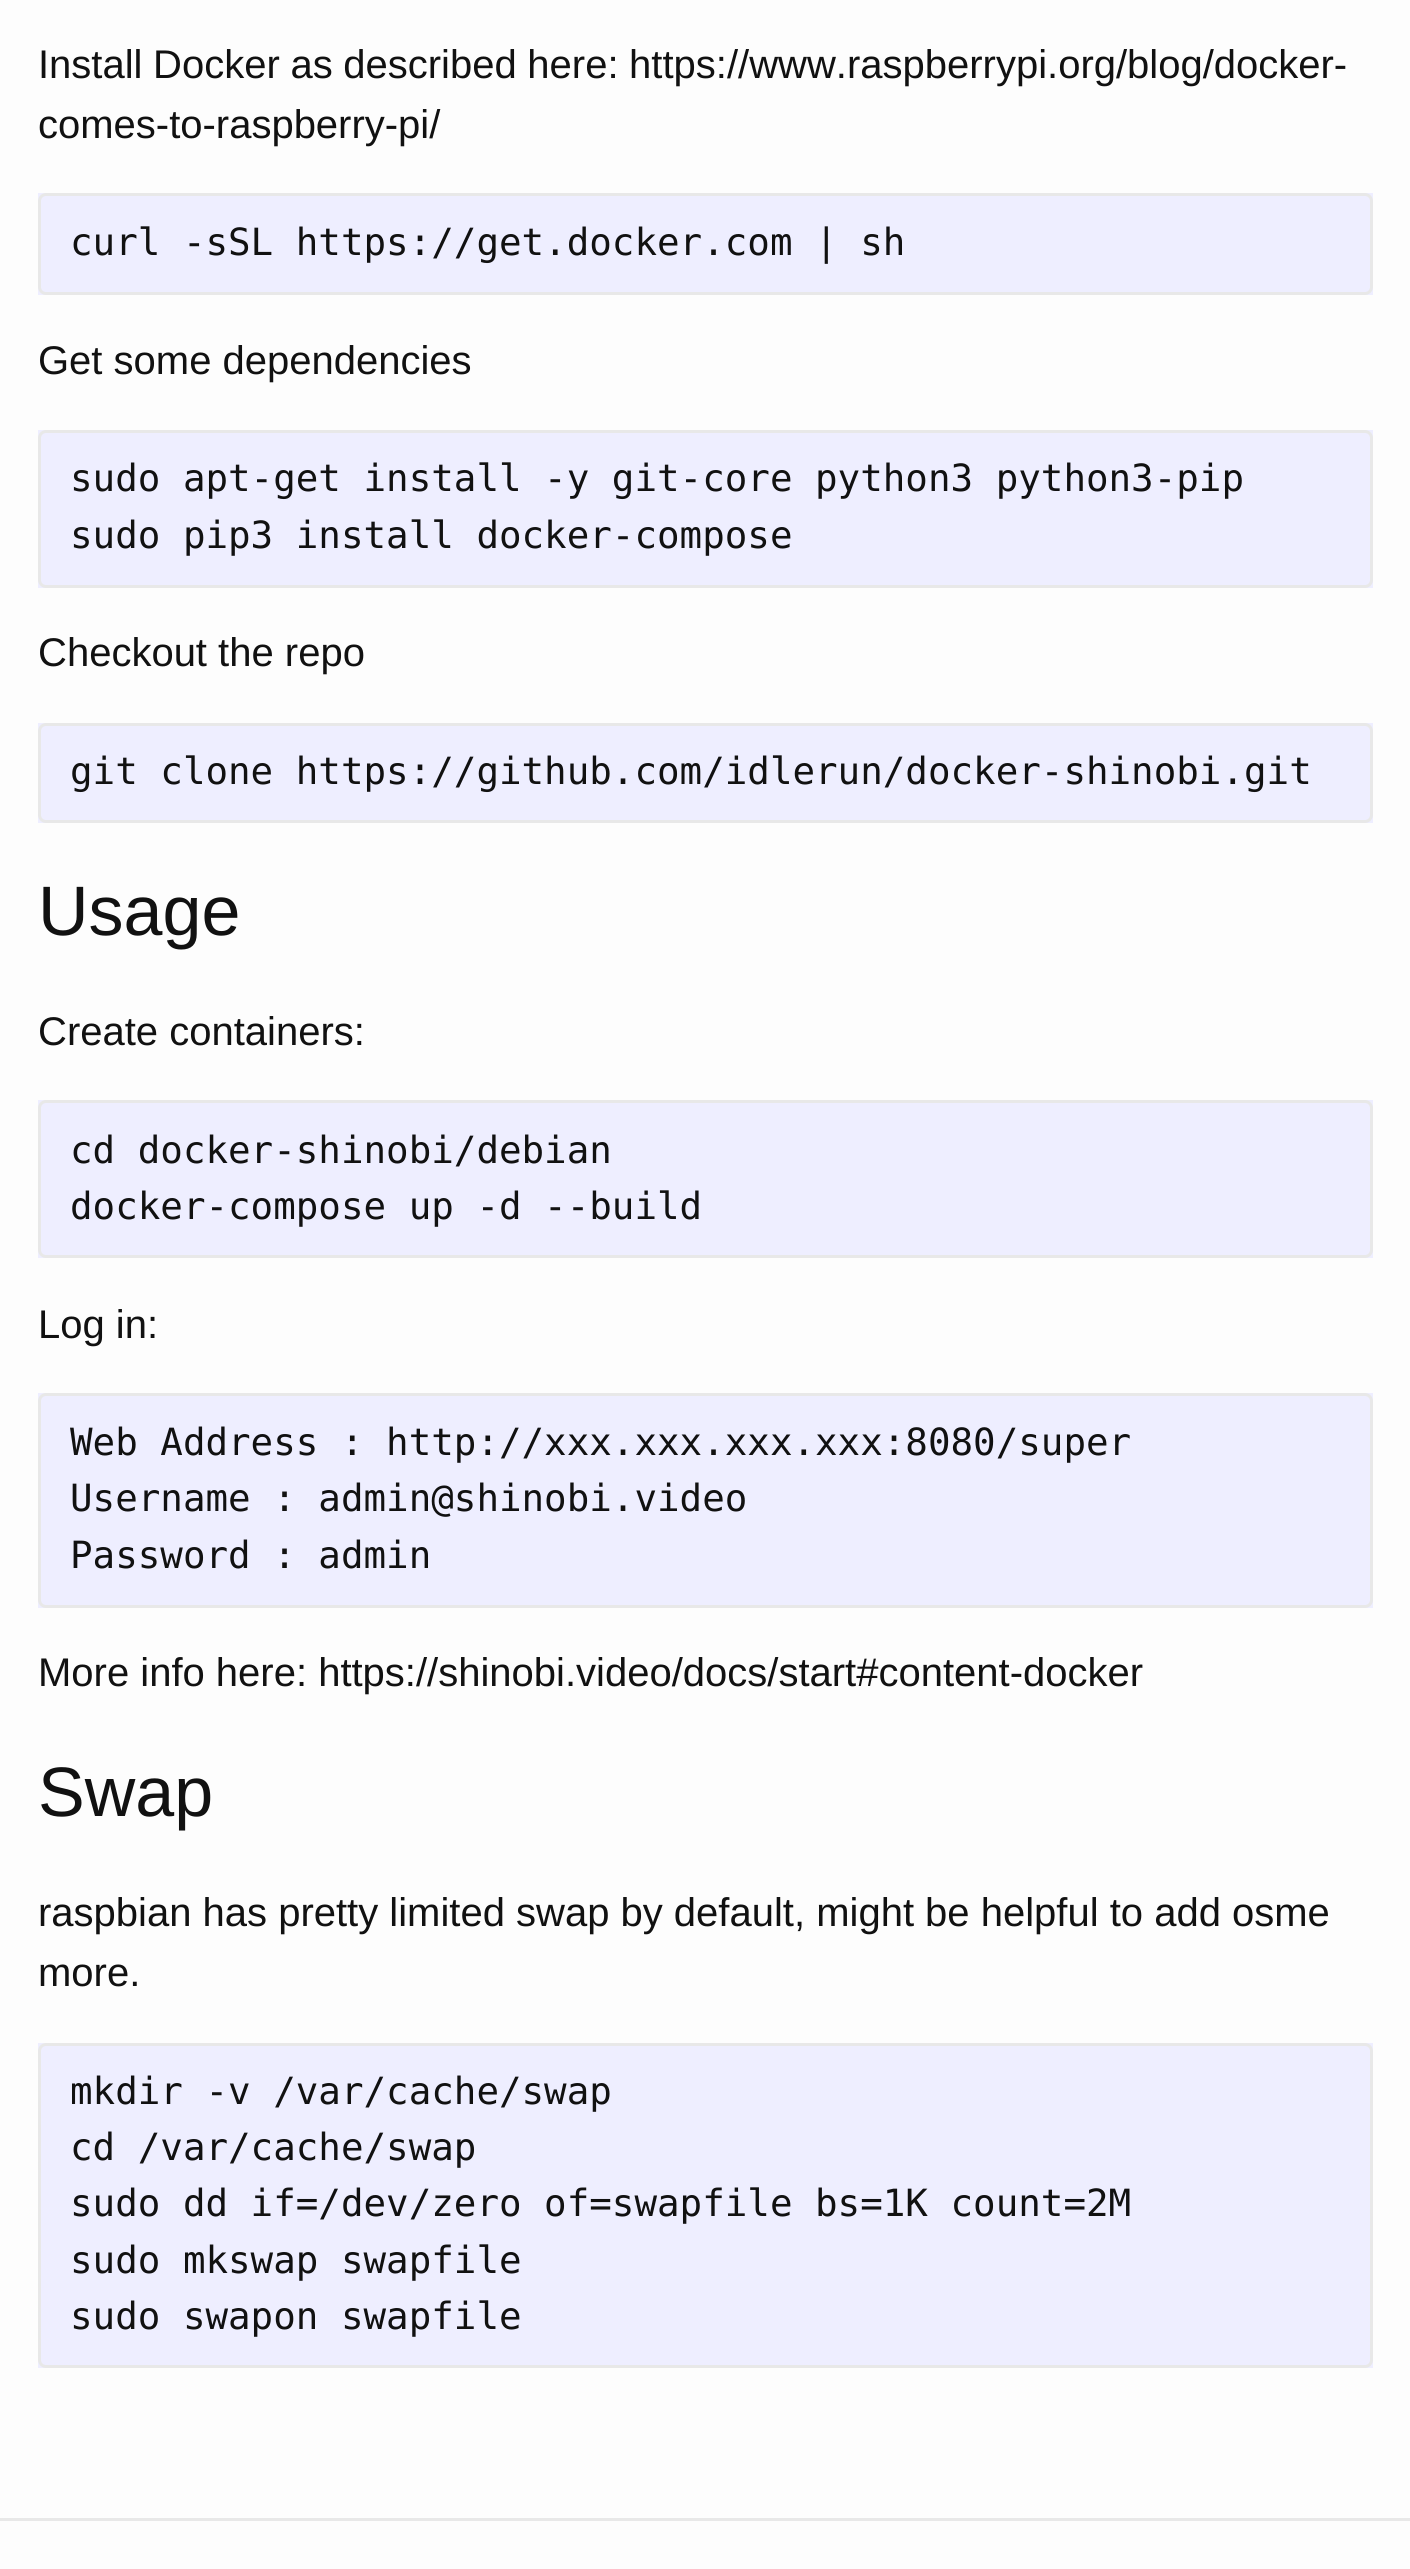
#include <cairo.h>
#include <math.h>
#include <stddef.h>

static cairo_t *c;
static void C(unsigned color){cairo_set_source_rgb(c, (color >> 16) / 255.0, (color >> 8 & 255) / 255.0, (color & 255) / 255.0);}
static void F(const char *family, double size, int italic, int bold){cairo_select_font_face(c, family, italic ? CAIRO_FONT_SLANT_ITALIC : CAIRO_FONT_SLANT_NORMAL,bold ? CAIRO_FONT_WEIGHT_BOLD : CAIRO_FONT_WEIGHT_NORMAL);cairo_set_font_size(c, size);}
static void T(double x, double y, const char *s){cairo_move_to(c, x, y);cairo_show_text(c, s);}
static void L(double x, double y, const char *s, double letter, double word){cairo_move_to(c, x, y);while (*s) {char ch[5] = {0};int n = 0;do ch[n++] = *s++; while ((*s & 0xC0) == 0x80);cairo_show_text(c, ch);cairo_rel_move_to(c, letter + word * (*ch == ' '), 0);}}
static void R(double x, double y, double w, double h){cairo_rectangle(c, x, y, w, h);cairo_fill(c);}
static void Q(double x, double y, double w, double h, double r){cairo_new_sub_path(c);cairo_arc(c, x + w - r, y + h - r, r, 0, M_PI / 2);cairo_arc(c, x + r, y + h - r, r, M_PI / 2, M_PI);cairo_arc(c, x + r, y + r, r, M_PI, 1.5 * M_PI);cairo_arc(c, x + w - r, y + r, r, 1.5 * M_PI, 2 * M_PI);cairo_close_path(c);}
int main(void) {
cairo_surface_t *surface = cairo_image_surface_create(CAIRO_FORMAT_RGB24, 1410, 2569);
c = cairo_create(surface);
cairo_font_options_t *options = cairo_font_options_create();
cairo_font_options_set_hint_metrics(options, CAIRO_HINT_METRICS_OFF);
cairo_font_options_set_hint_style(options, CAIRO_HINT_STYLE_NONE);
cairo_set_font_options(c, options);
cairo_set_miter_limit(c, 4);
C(0xfdfdfd);
cairo_paint(c);
F("Liberation Sans",40,0,0);
C(0x111111);
L(38,78,"Install Docker as described here: https://www.raspberrypi.org/blog/docker-",0,-.5);
T(38,138,"comes-to-raspberry-pi/");
C(0xeeeeff);
R(38,193,1335,102);
Q(39.5,194.5,1332,99,6.5);
C(0xe8e8e8);
cairo_set_line_width(c,3);
cairo_stroke(c);
F("DejaVu Sans Mono",37.5,0,0);
C(0x111111);
T(70,255,"curl -sSL https://get.docker.com | sh");
F("Liberation Sans",40,0,0);
T(38,374,"Get some dependencies");
C(0xeeeeff);
R(38,430,1335,158);
Q(39.5,431.5,1332,155,6.5);
C(0xe8e8e8);
cairo_stroke(c);
F("DejaVu Sans Mono",37.5,0,0);
C(0x111111);
T(70,491,"sudo apt-get install -y git-core python3 python3-pip");
T(70,548,"sudo pip3 install docker-compose");
F("Liberation Sans",40,0,0);
T(38,666,"Checkout the repo");
C(0xeeeeff);
R(38,723,1335,100);
Q(39.5,724.5,1332,97,6.5);
C(0xe8e8e8);
cairo_stroke(c);
F("DejaVu Sans Mono",37.5,0,0);
C(0x111111);
T(70,784,"git clone https://github.com/idlerun/docker-shinobi.git");
F("Liberation Sans",70,0,0);
T(38,935,"Usage");
F("Liberation Sans",40,0,0);
T(38,1045,"Create containers:");
C(0xeeeeff);
R(38,1100,1335,158);
Q(39.5,1101.5,1332,155,6.5);
C(0xe8e8e8);
cairo_stroke(c);
F("DejaVu Sans Mono",37.5,0,0);
C(0x111111);
T(70,1163,"cd docker-shinobi/debian");
T(70,1219,"docker-compose up -d --build");
F("Liberation Sans",40,0,0);
T(38,1338,"Log in:");
C(0xeeeeff);
R(38,1393,1335,215);
Q(39.5,1394.5,1332,212,6.5);
C(0xe8e8e8);
cairo_stroke(c);
F("DejaVu Sans Mono",37.5,0,0);
C(0x111111);
T(70,1455,"Web Address : http://xxx.xxx.xxx.xxx:8080/super");
T(70,1511,"Username : admin@shinobi.video");
T(70,1568,"Password : admin");
F("Liberation Sans",40,0,0);
T(38,1686,"More info here: https://shinobi.video/docs/start#content-docker");
F("Liberation Sans",70,0,0);
T(38,1816,"Swap");
F("Liberation Sans",40,0,0);
T(38,1926,"raspbian has pretty limited swap by default, might be helpful to add osme");
T(38,1986,"more.");
C(0xeeeeff);
R(38,2043,1335,325);
Q(39.5,2044.5,1332,322,6.5);
C(0xe8e8e8);
cairo_stroke(c);
F("DejaVu Sans Mono",37.5,0,0);
C(0x111111);
T(70,2104,"mkdir -v /var/cache/swap");
T(70,2160,"cd /var/cache/swap");
T(70,2216,"sudo dd if=/dev/zero of=swapfile bs=1K count=2M");
T(70,2273,"sudo mkswap swapfile");
T(70,2329,"sudo swapon swapfile");
C(0xe8e8e8);
R(0,2518,1410,3);
cairo_surface_write_to_png(surface, "o.png");
cairo_font_options_destroy(options);
cairo_destroy(c);
cairo_surface_destroy(surface);
return 0;
}
